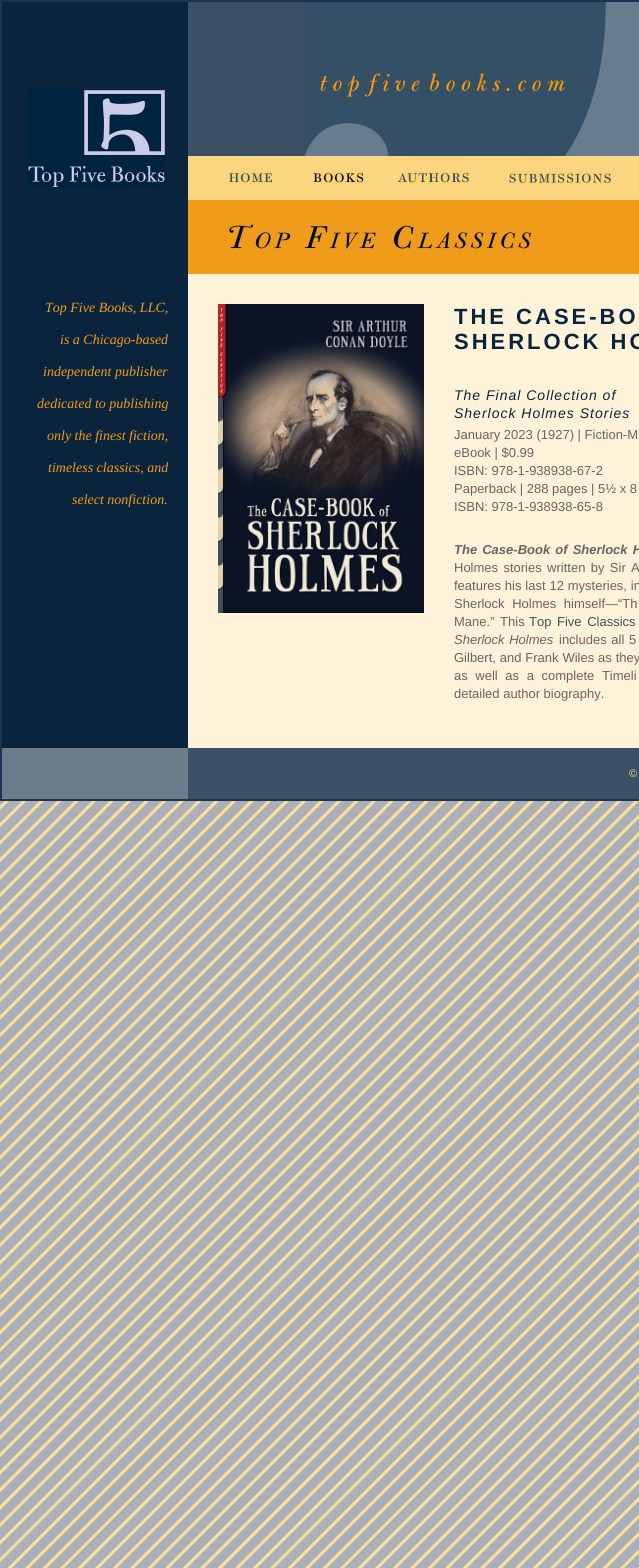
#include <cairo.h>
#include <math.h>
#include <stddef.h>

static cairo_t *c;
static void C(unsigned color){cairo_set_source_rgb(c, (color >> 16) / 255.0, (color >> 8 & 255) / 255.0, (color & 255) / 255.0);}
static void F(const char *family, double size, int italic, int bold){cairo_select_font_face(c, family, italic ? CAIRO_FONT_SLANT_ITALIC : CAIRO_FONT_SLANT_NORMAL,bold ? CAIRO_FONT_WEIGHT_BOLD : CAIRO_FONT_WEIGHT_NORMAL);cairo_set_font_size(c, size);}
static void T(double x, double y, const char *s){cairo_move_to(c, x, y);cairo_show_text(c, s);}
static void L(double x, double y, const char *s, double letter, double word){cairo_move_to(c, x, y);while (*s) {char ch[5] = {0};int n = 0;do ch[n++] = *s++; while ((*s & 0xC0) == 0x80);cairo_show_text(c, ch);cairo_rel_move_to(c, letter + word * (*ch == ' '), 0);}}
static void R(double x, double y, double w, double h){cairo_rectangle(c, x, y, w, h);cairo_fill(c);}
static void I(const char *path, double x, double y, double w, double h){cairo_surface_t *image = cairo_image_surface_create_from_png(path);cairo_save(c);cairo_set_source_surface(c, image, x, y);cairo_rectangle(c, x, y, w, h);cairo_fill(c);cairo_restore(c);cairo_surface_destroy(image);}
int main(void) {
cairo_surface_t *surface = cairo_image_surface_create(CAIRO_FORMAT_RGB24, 639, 1568);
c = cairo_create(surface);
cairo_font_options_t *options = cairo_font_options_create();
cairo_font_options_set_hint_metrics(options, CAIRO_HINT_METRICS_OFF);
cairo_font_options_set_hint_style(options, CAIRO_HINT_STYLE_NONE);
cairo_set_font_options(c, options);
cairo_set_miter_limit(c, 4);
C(0xffffff);
cairo_paint(c);
I("1.png",0,801,639,767);
cairo_rectangle(c,1,1,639,799);
C(0x1a3455);
cairo_stroke(c);
C(0x0a243d);
R(2,2,186,746);
I("2.png",27,90,138,98);
F("Liberation Serif",14,1,0);
C(0xf09b1a);
T(45,312,"Top Five Books, LLC,");
T(60,344,"is a Chicago-based");
T(43,376,"independent publisher");
T(37,408,"dedicated to publishing");
T(47,440,"only the finest fiction,");
T(48,472,"timeless classics, and");
T(72,504,"select nonfiction.");
C(0x3b5065);
R(188,2,116,154);
I("3.png",304,2,335,154);
C(0xfbd580);
R(188,156,451,44);
I("4.png",228,172,45,12);
I("5.png",313,172,51,12);
I("6.png",398,172,71,12);
I("7.png",509,172,102,12);
C(0xf09b1a);
R(188,200,451,74);
I("8.png",229,224,303,25);
C(0xfef2d8);
R(188,274,451,474);
I("9.png",218,304,206,309);
F("Liberation Sans",22,0,1);
C(0x0a243d);
L(454,324,"THE CASE-BO",3,0);
L(454,349,"SHERLOCK HO",3,0);
F("Liberation Sans",14,1,0);
L(454,400,"The Final Collection of",1,0);
L(454,418,"Sherlock Holmes Stories",1,0);
F("Liberation Sans",13,0,0);
C(0x666666);
T(454,439,"January 2023 (1927) | Fiction-M");
T(454,457,"eBook | $0.99");
T(454,475,"ISBN: 978-1-938938-67-2");
T(454,493,"Paperback | 288 pages | 5½ x 8");
T(454,511,"ISBN: 978-1-938938-65-8");
F("Liberation Sans",13,1,1);
L(454,554,"The Case-Book of Sherlock H",0,1.5);
F("Liberation Sans",13,0,0);
L(454,572,"Holmes stories written by Sir A",0,1.75);
L(454,590,"features his last 12 mysteries, in",0,.25);
L(454,608,"Sherlock Holmes himself—“Th",0,4);
L(454,626,"Mane.” This",0,2);
C(0x3b5065);
L(529,626,"Top Five Classics",0,2);
F("Liberation Sans",13,1,0);
C(0x666666);
L(454,644,"Sherlock Holmes",0,1);
F("Liberation Sans",13,0,0);
L(559,644,"includes all 5",0,1);
L(454,662,"Gilbert, and Frank Wiles as they",0,.25);
L(454,680,"as well as a complete Timeli",0,4);
T(454,698,"detailed author biography.");
C(0x6c7c8b);
R(2,748,186,51);
C(0x3b5065);
R(188,748,451,51);
F("Liberation Sans",11,0,0);
C(0xfbd580);
T(629,777,"©");
cairo_surface_write_to_png(surface, "o.png");
cairo_font_options_destroy(options);
cairo_destroy(c);
cairo_surface_destroy(surface);
return 0;
}
